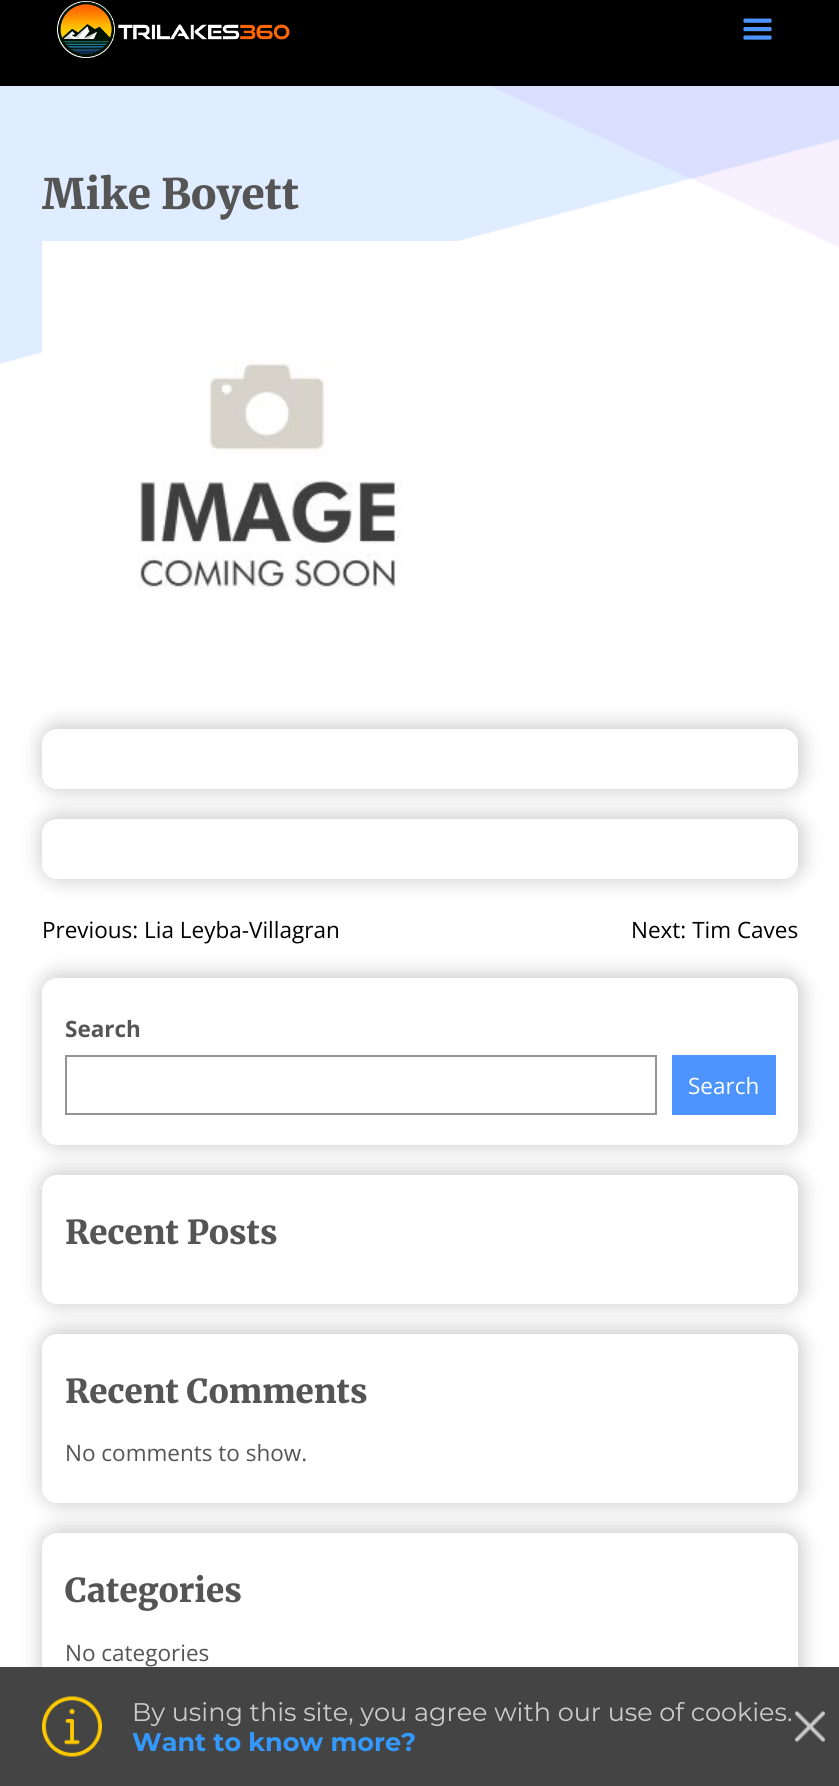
#include <cairo.h>
#include <math.h>
#include <stddef.h>

static cairo_t *c;
static void C(unsigned color){cairo_set_source_rgb(c, (color >> 16) / 255.0, (color >> 8 & 255) / 255.0, (color & 255) / 255.0);}
static void F(const char *family, double size, int italic, int bold){cairo_select_font_face(c, family, italic ? CAIRO_FONT_SLANT_ITALIC : CAIRO_FONT_SLANT_NORMAL,bold ? CAIRO_FONT_WEIGHT_BOLD : CAIRO_FONT_WEIGHT_NORMAL);cairo_set_font_size(c, size);}
static void T(double x, double y, const char *s){cairo_move_to(c, x, y);cairo_show_text(c, s);}
static void R(double x, double y, double w, double h){cairo_rectangle(c, x, y, w, h);cairo_fill(c);}
static void Q(double x, double y, double w, double h, double r){cairo_new_sub_path(c);cairo_arc(c, x + w - r, y + h - r, r, 0, M_PI / 2);cairo_arc(c, x + r, y + h - r, r, M_PI / 2, M_PI);cairo_arc(c, x + r, y + r, r, M_PI, 1.5 * M_PI);cairo_arc(c, x + w - r, y + r, r, 1.5 * M_PI, 2 * M_PI);cairo_close_path(c);}
static void S(double x, double y, double w, double h, double r, double blur, double alpha){cairo_push_group_with_content(c, CAIRO_CONTENT_ALPHA);cairo_set_operator(c, CAIRO_OPERATOR_SOURCE);for (int i = 15; i >= -15 && fmin(w, h) + blur * i / 3 > 0; i -= 2) {double e = blur * i / 6;cairo_set_source_rgba(c, 0, 0, 0, alpha * erfc((i - 1) / 8.5) / 2);Q(x - e, y - e, w + 2 * e, h + 2 * e, fmax(0, fmin(r + e + blur * .6, fmin(w, h) / 2 + e)));cairo_fill(c);}cairo_pattern_t *soft = cairo_pop_group(c);cairo_mask(c, soft);cairo_pattern_destroy(soft);}
static void I(const char *path, double x, double y, double w, double h){cairo_surface_t *image = cairo_image_surface_create_from_png(path);cairo_save(c);cairo_set_source_surface(c, image, x, y);cairo_rectangle(c, x, y, w, h);cairo_fill(c);cairo_restore(c);cairo_surface_destroy(image);}
int main(void) {
cairo_surface_t *surface = cairo_image_surface_create(CAIRO_FORMAT_RGB24, 839, 1786);
c = cairo_create(surface);
cairo_font_options_t *options = cairo_font_options_create();
cairo_font_options_set_hint_metrics(options, CAIRO_HINT_METRICS_OFF);
cairo_font_options_set_hint_style(options, CAIRO_HINT_STYLE_NONE);
cairo_set_font_options(c, options);
cairo_set_miter_limit(c, 4);
C(0xffffff);
cairo_paint(c);
C(0x000000);
R(0,0,839,86);
I("1.png",57,1,233,57);
I("2.png",743,18,29,22);
I("3.png",0,86,839,278);
F("Merriweather Black",42,0,0);
C(0x555555);
T(42,209,"Mike Boyett");
I("4.png",42,241,417,348);
C(0x999999);
S(42,726,759,63,17,10.5,.55);
C(0xffffff);
Q(42,729,756,60,15);
cairo_fill(c);
C(0x999999);
S(42,816,759,63,17,10.5,.55);
C(0xffffff);
Q(42,819,756,60,15);
cairo_fill(c);
F("Open Sans",22.5,0,0);
C(0x000000);
T(42,938,"Previous: Lia Leyba-Villagran");
T(631,938,"Next: Tim Caves");
C(0x999999);
S(42,975,759,170,17,10.5,.55);
C(0xffffff);
Q(42,978,756,167,15);
cairo_fill(c);
F("Open Sans",22.5,0,1);
C(0x555555);
T(65,1037,"Search");
cairo_rectangle(c,66,1056,590,58);
C(0x949494);
cairo_stroke(c);
C(0x4d94fe);
R(672,1055,104,60);
F("Open Sans",22.5,0,0);
C(0xffffff);
T(688,1094,"Search");
C(0x999999);
S(42,1172,759,132,17,10.5,.55);
C(0xffffff);
Q(42,1175,756,129,15);
cairo_fill(c);
F("Merriweather Black",33,0,0);
C(0x555555);
T(65,1244,"Recent Posts");
C(0x999999);
S(42,1331,759,172,17,10.5,.55);
C(0xffffff);
Q(42,1334,756,169,15);
cairo_fill(c);
C(0x555555);
T(65,1403,"Recent Comments");
F("Open Sans",22.5,0,0);
T(65,1461,"No comments to show.");
C(0x999999);
S(42,1530,759,171,17,10.5,.55);
C(0xffffff);
Q(42,1533,756,168,15);
cairo_fill(c);
F("Merriweather Black",33,0,0);
C(0x555555);
T(65,1602,"Categories");
F("Open Sans",22.5,0,0);
T(65,1661,"No categories");
C(0x444444);
R(0,1667,839,119);
I("5.png",42,1696,60,61);
F("Montserrat",25.5,0,0);
C(0xcccccc);
T(132,1721,"By using this site, you agree with our use of cookies.");
F("Montserrat",25.5,0,1);
C(0x3399ff);
T(132,1751,"Want to know more?");
I("6.png",795,1711,30,31);
cairo_surface_write_to_png(surface, "o.png");
cairo_font_options_destroy(options);
cairo_destroy(c);
cairo_surface_destroy(surface);
return 0;
}
